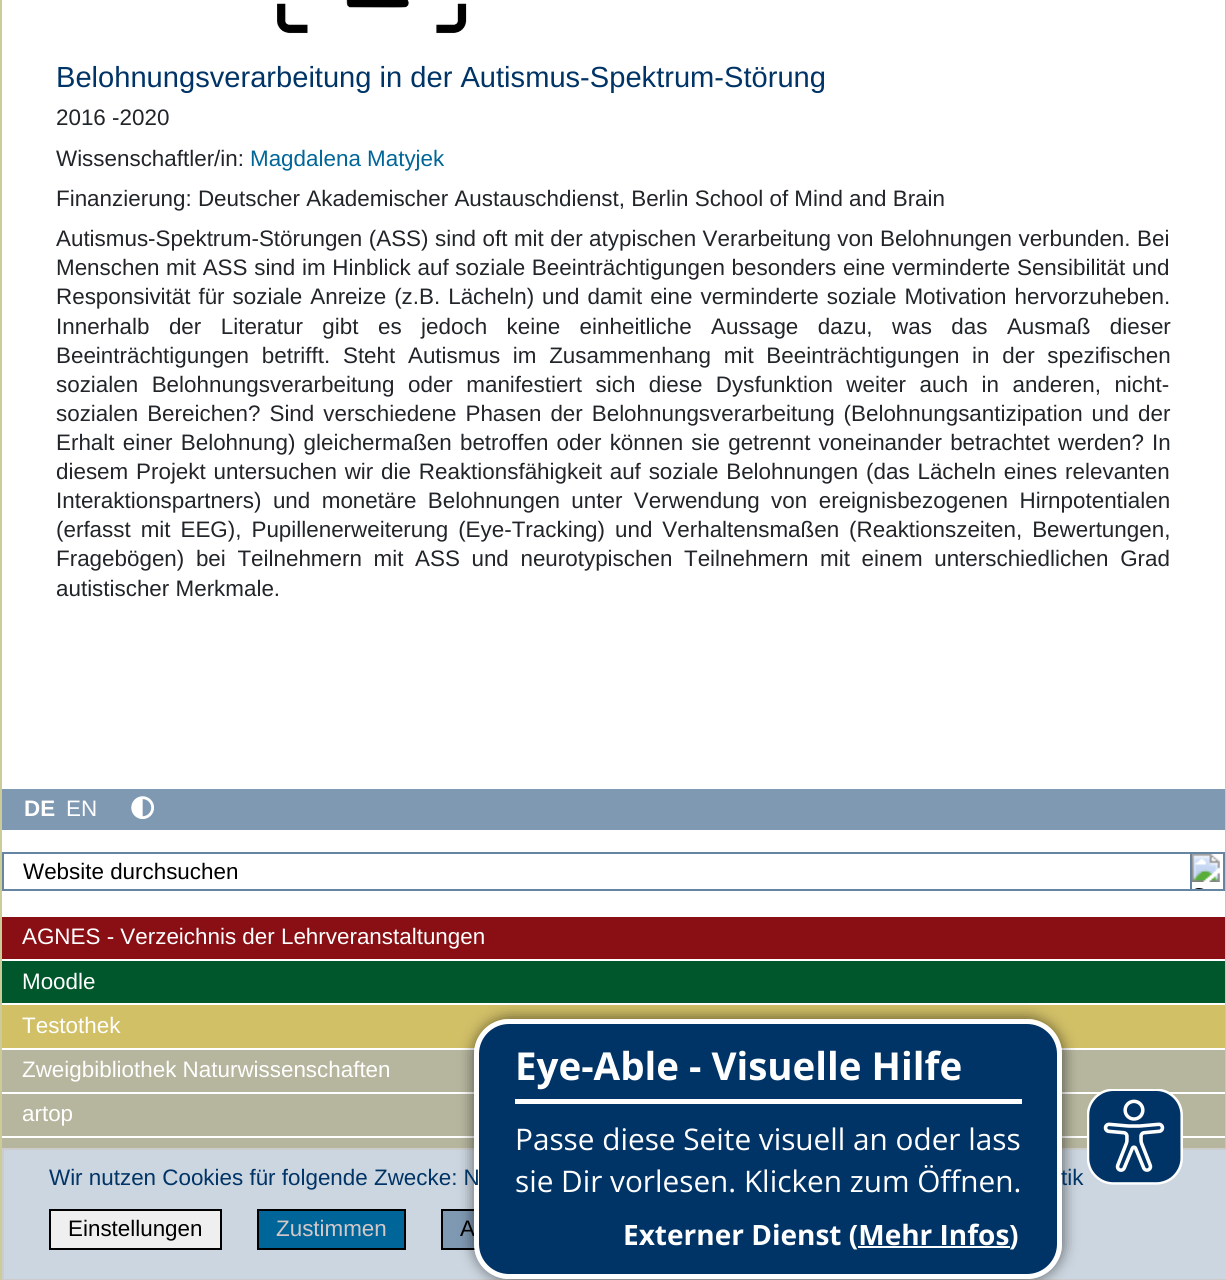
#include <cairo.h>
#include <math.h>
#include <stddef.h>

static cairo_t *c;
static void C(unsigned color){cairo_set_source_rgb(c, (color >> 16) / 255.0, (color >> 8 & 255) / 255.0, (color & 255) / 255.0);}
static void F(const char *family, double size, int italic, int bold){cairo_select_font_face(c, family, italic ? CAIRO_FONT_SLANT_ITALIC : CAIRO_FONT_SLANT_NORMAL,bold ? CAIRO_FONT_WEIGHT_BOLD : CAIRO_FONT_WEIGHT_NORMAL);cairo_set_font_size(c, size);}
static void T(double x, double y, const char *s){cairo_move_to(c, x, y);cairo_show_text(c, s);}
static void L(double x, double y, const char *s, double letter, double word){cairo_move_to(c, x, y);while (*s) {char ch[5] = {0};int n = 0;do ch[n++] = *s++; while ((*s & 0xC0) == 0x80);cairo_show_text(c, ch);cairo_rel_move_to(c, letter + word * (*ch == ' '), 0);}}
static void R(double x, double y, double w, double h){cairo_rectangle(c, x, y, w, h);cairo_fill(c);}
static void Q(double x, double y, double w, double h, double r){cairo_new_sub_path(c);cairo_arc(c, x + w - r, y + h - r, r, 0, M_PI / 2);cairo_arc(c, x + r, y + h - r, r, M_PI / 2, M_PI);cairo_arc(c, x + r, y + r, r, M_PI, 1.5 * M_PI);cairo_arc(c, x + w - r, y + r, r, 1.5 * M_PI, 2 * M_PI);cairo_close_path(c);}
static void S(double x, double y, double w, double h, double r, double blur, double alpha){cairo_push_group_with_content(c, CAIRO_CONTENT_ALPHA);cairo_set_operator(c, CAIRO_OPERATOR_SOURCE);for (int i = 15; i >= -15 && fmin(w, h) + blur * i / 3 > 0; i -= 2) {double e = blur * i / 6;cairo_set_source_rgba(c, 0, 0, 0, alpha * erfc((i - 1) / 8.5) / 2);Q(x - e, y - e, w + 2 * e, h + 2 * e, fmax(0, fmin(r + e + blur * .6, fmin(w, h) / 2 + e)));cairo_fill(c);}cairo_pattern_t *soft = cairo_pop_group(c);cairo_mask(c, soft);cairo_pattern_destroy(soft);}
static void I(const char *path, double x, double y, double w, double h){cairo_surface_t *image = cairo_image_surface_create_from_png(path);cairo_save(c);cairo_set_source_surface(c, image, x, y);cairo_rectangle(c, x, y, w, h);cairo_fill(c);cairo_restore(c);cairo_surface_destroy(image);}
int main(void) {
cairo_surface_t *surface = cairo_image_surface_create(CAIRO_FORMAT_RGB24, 1226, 1280);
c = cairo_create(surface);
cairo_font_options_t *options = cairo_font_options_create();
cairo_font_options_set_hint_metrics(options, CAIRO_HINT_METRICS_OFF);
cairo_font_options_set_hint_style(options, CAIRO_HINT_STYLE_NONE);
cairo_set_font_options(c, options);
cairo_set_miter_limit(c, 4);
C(0xffffff);
cairo_paint(c);
C(0xcccc99);
R(1225,0,1,1148);
R(0,0,2,1280);
I("1.png",277,0,190,34);
F("Liberation Sans",29.1,0,0);
C(0x003366);
T(56,87,"Belohnungsverarbeitung in der Autismus-Spektrum-Störung");
F("Liberation Sans",22.4,0,0);
C(0x212529);
T(56,125,"2016 -2020");
T(56,166,"Wissenschaftler/in:");
C(0x006699);
T(250,166,"Magdalena Matyjek");
C(0x212529);
T(56,206,"Finanzierung: Deutscher Akademischer Austauschdienst, Berlin School of Mind and Brain");
L(56,246,"Autismus-Spektrum-Störungen (ASS) sind oft mit der atypischen Verarbeitung von Belohnungen verbunden. Bei",0,.25);
L(56,275,"Menschen mit ASS sind im Hinblick auf soziale Beeinträchtigungen besonders eine verminderte Sensibilität und",0,.5);
L(56,304,"Responsivität für soziale Anreize (z.B. Lächeln) und damit eine verminderte soziale Motivation hervorzuheben.",0,1.75);
L(56,334,"Innerhalb der Literatur gibt es jedoch keine einheitliche Aussage dazu, was das Ausmaß dieser",0,13.25);
L(56,363,"Beeinträchtigungen betrifft. Steht Autismus im Zusammenhang mit Beeinträchtigungen in der spezifischen",0,6.5);
L(56,392,"sozialen Belohnungsverarbeitung oder manifestiert sich diese Dysfunktion weiter auch in anderen, nicht-",0,7.25);
L(56,421,"sozialen Bereichen? Sind verschiedene Phasen der Belohnungsverarbeitung (Belohnungsantizipation und der",0,2.75);
L(56,450,"Erhalt einer Belohnung) gleichermaßen betroffen oder können sie getrennt voneinander betrachtet werden? In",0,2);
L(56,479,"diesem Projekt untersuchen wir die Reaktionsfähigkeit auf soziale Belohnungen (das Lächeln eines relevanten",0,1.6);
L(56,508,"Interaktionspartners) und monetäre Belohnungen unter Verwendung von ereignisbezogenen Hirnpotentialen",0,5.25);
L(56,537,"(erfasst mit EEG), Pupillenerweiterung (Eye-Tracking) und Verhaltensmaßen (Reaktionszeiten, Bewertungen,",0,3.75);
L(56,566,"Fragebögen) bei Teilnehmern mit ASS und neurotypischen Teilnehmern mit einem unterschiedlichen Grad",0,5.4);
T(56,596,"autistischer Merkmale.");
C(0x8099b2);
R(2,789,1223,41);
F("Liberation Sans",22.4,0,1);
C(0xffffff);
T(24,816,"DE");
F("Liberation Sans",22.4,0,0);
T(66,816,"EN");
I("2.png",131,796,23,23);
cairo_rectangle(c,3,853,1221,37);
C(0x6685a3);
cairo_stroke(c);
C(0x000000);
T(23,879,"Website durchsuchen");
cairo_rectangle(c,1191,853,33,37);
C(0x6685a3);
cairo_stroke(c);
I("3.png",1192,854,28,35);
C(0x8a0f14);
R(2,917,1223,42);
C(0xffffff);
T(22,944,"AGNES - Verzeichnis der Lehrveranstaltungen");
C(0x00572c);
R(2,961,1223,42);
C(0xffffff);
T(22,989,"Moodle");
C(0xd2c067);
R(2,1005,1223,43);
C(0xffffff);
T(22,1033,"Testothek");
C(0xb6b69e);
R(2,1050,1223,42);
C(0xffffff);
T(22,1077,"Zweigbibliothek Naturwissenschaften");
C(0xb6b69e);
R(2,1094,1223,42);
C(0xffffff);
T(22,1121,"artop");
C(0xb6b69e);
R(2,1138,1223,10);
C(0xccd6e0);
cairo_rectangle(c,3,1149,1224,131);
cairo_fill_preserve(c);
C(0xcccccc);
cairo_stroke(c);
C(0x8099b2);
R(443,1211,32,37);
cairo_rectangle(c,442,1210,131,39);
C(0x000000);
cairo_stroke(c);
cairo_save(c);
cairo_set_fill_rule(c,CAIRO_FILL_RULE_EVEN_ODD);
cairo_new_path(c);
cairo_move_to(c,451,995);
cairo_line_to(c,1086,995);
cairo_line_to(c,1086,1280);
cairo_line_to(c,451,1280);
cairo_close_path(c);
cairo_move_to(c,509,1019);
cairo_line_to(c,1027,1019);
cairo_curve_to(c,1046.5,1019,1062,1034.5,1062,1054);
cairo_line_to(c,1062,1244);
cairo_curve_to(c,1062,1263.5,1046.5,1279,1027,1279);
cairo_line_to(c,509,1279);
cairo_curve_to(c,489.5,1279,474,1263.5,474,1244);
cairo_line_to(c,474,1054);
cairo_curve_to(c,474,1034.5,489.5,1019,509,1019);
cairo_close_path(c);
cairo_clip(c);
C(0x000000);
S(473,1017,591,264,37,7,.5);
cairo_restore(c);
T(460,1236,"A");
C(0x003366);
Q(476.5,1021.5,583,255,32.5);
cairo_fill_preserve(c);
C(0xffffff);
cairo_set_line_width(c,5);
cairo_stroke(c);
R(515,1099,507,5);
F("Open Sans",38.5,0,1);
T(515,1080,"Eye-Able - Visuelle Hilfe");
F("Open Sans",29.75,0,0);
T(515,1150,"Passe diese Seite visuell an oder lass");
T(515,1192,"sie Dir vorlesen. Klicken zum Öffnen.");
F("Open Sans",28,0,1);
T(623,1245,"Externer Dienst (Mehr Infos");
R(858,1246,152,2);
T(1009,1245,")");
I("4.png",1087,1089,96,96);
F("Liberation Sans",22.4,0,0);
C(0x003366);
T(49,1185,"Wir nutzen Cookies für folgende Zwecke: N");
T(1061,1185,"tik");
C(0xefefef);
cairo_rectangle(c,50,1210,171,39);
cairo_fill_preserve(c);
C(0x000000);
cairo_set_line_width(c,2);
cairo_stroke(c);
T(68,1236,"Einstellungen");
C(0x006699);
cairo_rectangle(c,258,1210,147,39);
cairo_fill_preserve(c);
C(0x000000);
cairo_stroke(c);
C(0xd5c7c7);
T(276,1236,"Zustimmen");
cairo_surface_write_to_png(surface, "o.png");
cairo_font_options_destroy(options);
cairo_destroy(c);
cairo_surface_destroy(surface);
return 0;
}
